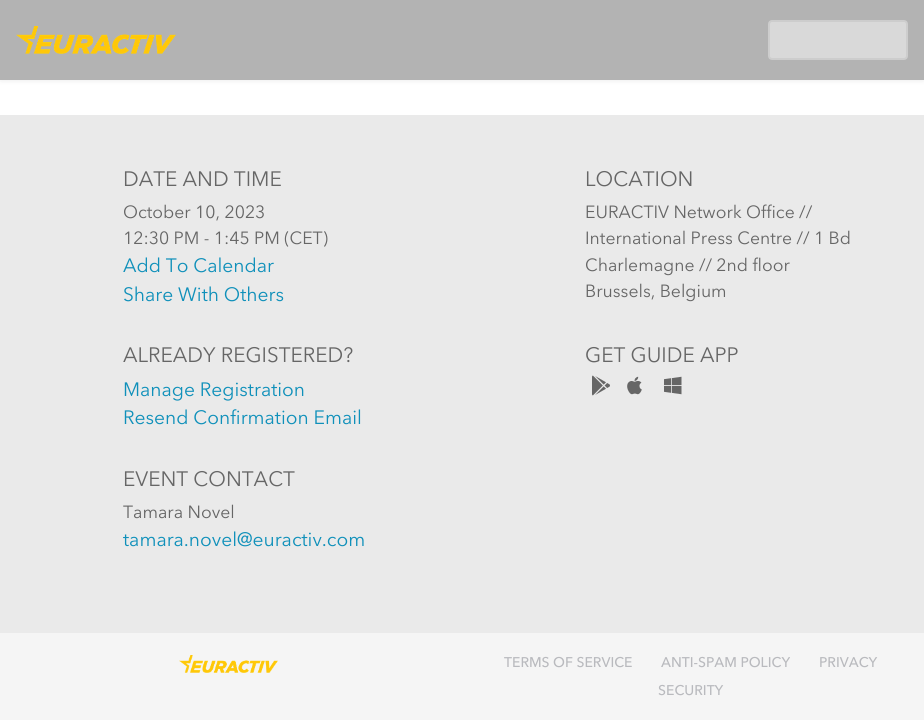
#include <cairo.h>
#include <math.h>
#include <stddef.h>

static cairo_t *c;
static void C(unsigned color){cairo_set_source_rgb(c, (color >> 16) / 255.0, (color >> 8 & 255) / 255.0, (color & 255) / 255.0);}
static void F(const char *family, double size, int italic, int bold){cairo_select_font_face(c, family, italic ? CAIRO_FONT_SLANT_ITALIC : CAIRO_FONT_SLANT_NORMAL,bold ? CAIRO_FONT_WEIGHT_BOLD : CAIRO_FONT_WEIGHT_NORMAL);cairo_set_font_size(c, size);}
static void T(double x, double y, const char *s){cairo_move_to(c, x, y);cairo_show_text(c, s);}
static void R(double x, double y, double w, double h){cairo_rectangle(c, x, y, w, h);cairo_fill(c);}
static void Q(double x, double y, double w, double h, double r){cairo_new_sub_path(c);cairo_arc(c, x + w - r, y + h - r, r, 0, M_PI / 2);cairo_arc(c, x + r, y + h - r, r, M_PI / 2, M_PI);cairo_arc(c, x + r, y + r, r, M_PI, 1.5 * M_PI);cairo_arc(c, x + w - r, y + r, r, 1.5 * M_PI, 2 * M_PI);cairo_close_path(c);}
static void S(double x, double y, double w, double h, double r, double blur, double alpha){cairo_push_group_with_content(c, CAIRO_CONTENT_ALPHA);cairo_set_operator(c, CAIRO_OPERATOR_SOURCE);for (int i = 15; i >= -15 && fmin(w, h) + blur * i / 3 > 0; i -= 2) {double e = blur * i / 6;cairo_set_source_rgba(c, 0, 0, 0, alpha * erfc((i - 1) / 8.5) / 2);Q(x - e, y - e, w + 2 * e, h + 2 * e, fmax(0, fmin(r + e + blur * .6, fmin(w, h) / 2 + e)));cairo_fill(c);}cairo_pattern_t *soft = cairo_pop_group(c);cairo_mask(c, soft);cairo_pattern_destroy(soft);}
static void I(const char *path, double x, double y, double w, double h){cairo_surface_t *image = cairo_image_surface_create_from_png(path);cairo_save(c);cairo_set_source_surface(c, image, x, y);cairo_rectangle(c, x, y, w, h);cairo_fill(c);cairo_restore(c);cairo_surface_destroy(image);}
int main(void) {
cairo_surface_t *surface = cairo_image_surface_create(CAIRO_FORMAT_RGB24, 924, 720);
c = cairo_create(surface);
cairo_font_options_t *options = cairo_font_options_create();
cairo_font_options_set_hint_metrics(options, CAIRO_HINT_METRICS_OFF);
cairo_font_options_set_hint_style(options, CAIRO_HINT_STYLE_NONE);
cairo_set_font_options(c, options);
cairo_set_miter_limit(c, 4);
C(0xf5f5f5);
cairo_paint(c);
C(0xffffff);
R(0,80,924,35);
C(0x000000);
S(0,1,924,80,0,2.5,.07);
C(0xb3b3b3);
R(0,0,924,80);
I("1.png",16,26,160,28);
C(0xd9d9d9);
Q(769,21,138,38,3);
cairo_fill_preserve(c);
C(0xcdcdcd);
cairo_stroke(c);
C(0xeaeaea);
R(0,115,924,518);
F("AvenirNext",20.75,0,0);
C(0x666666);
T(123,186,"DATE AND TIME");
F("AvenirNext",17.6,0,0);
T(123,218,"October 10, 2023");
T(123,244,"12:30 PM - 1:45 PM (CET)");
F("AvenirNext",19.25,0,0);
C(0x0f90ba);
T(123,272,"Add To Calendar");
T(123,301,"Share With Others");
F("AvenirNext",20.75,0,0);
C(0x666666);
T(585,186,"LOCATION");
F("AvenirNext",17.6,0,0);
T(585,218,"EURACTIV Network Office //");
T(585,244,"International Press Centre // 1 Bd");
T(585,271,"Charlemagne // 2nd floor");
T(585,297,"Brussels, Belgium");
F("AvenirNext",20.75,0,0);
T(123,362,"ALREADY REGISTERED?");
F("AvenirNext",19.25,0,0);
C(0x0f90ba);
T(123,396,"Manage Registration");
T(123,424,"Resend Confirmation Email");
F("AvenirNext",20.75,0,0);
C(0x666666);
T(585,362,"GET GUIDE APP");
I("2.png",592,375,18,21);
I("3.png",627,376,15,19);
I("4.png",664,376,18,19);
T(123,486,"EVENT CONTACT");
F("AvenirNext",17.6,0,0);
T(123,518,"Tamara Novel");
F("AvenirNext",19.25,0,0);
C(0x0f90ba);
T(123,546,"tamara.novel@euractiv.com");
I("5.png",179,655,99,18);
F("AvenirNext Medium",14,0,0);
C(0xb9babe);
T(504,667,"TERMS OF SERVICE");
T(661,667,"ANTI-SPAM POLICY");
T(819,667,"PRIVACY");
T(658,695,"SECURITY");
cairo_surface_write_to_png(surface, "o.png");
cairo_font_options_destroy(options);
cairo_destroy(c);
cairo_surface_destroy(surface);
return 0;
}
